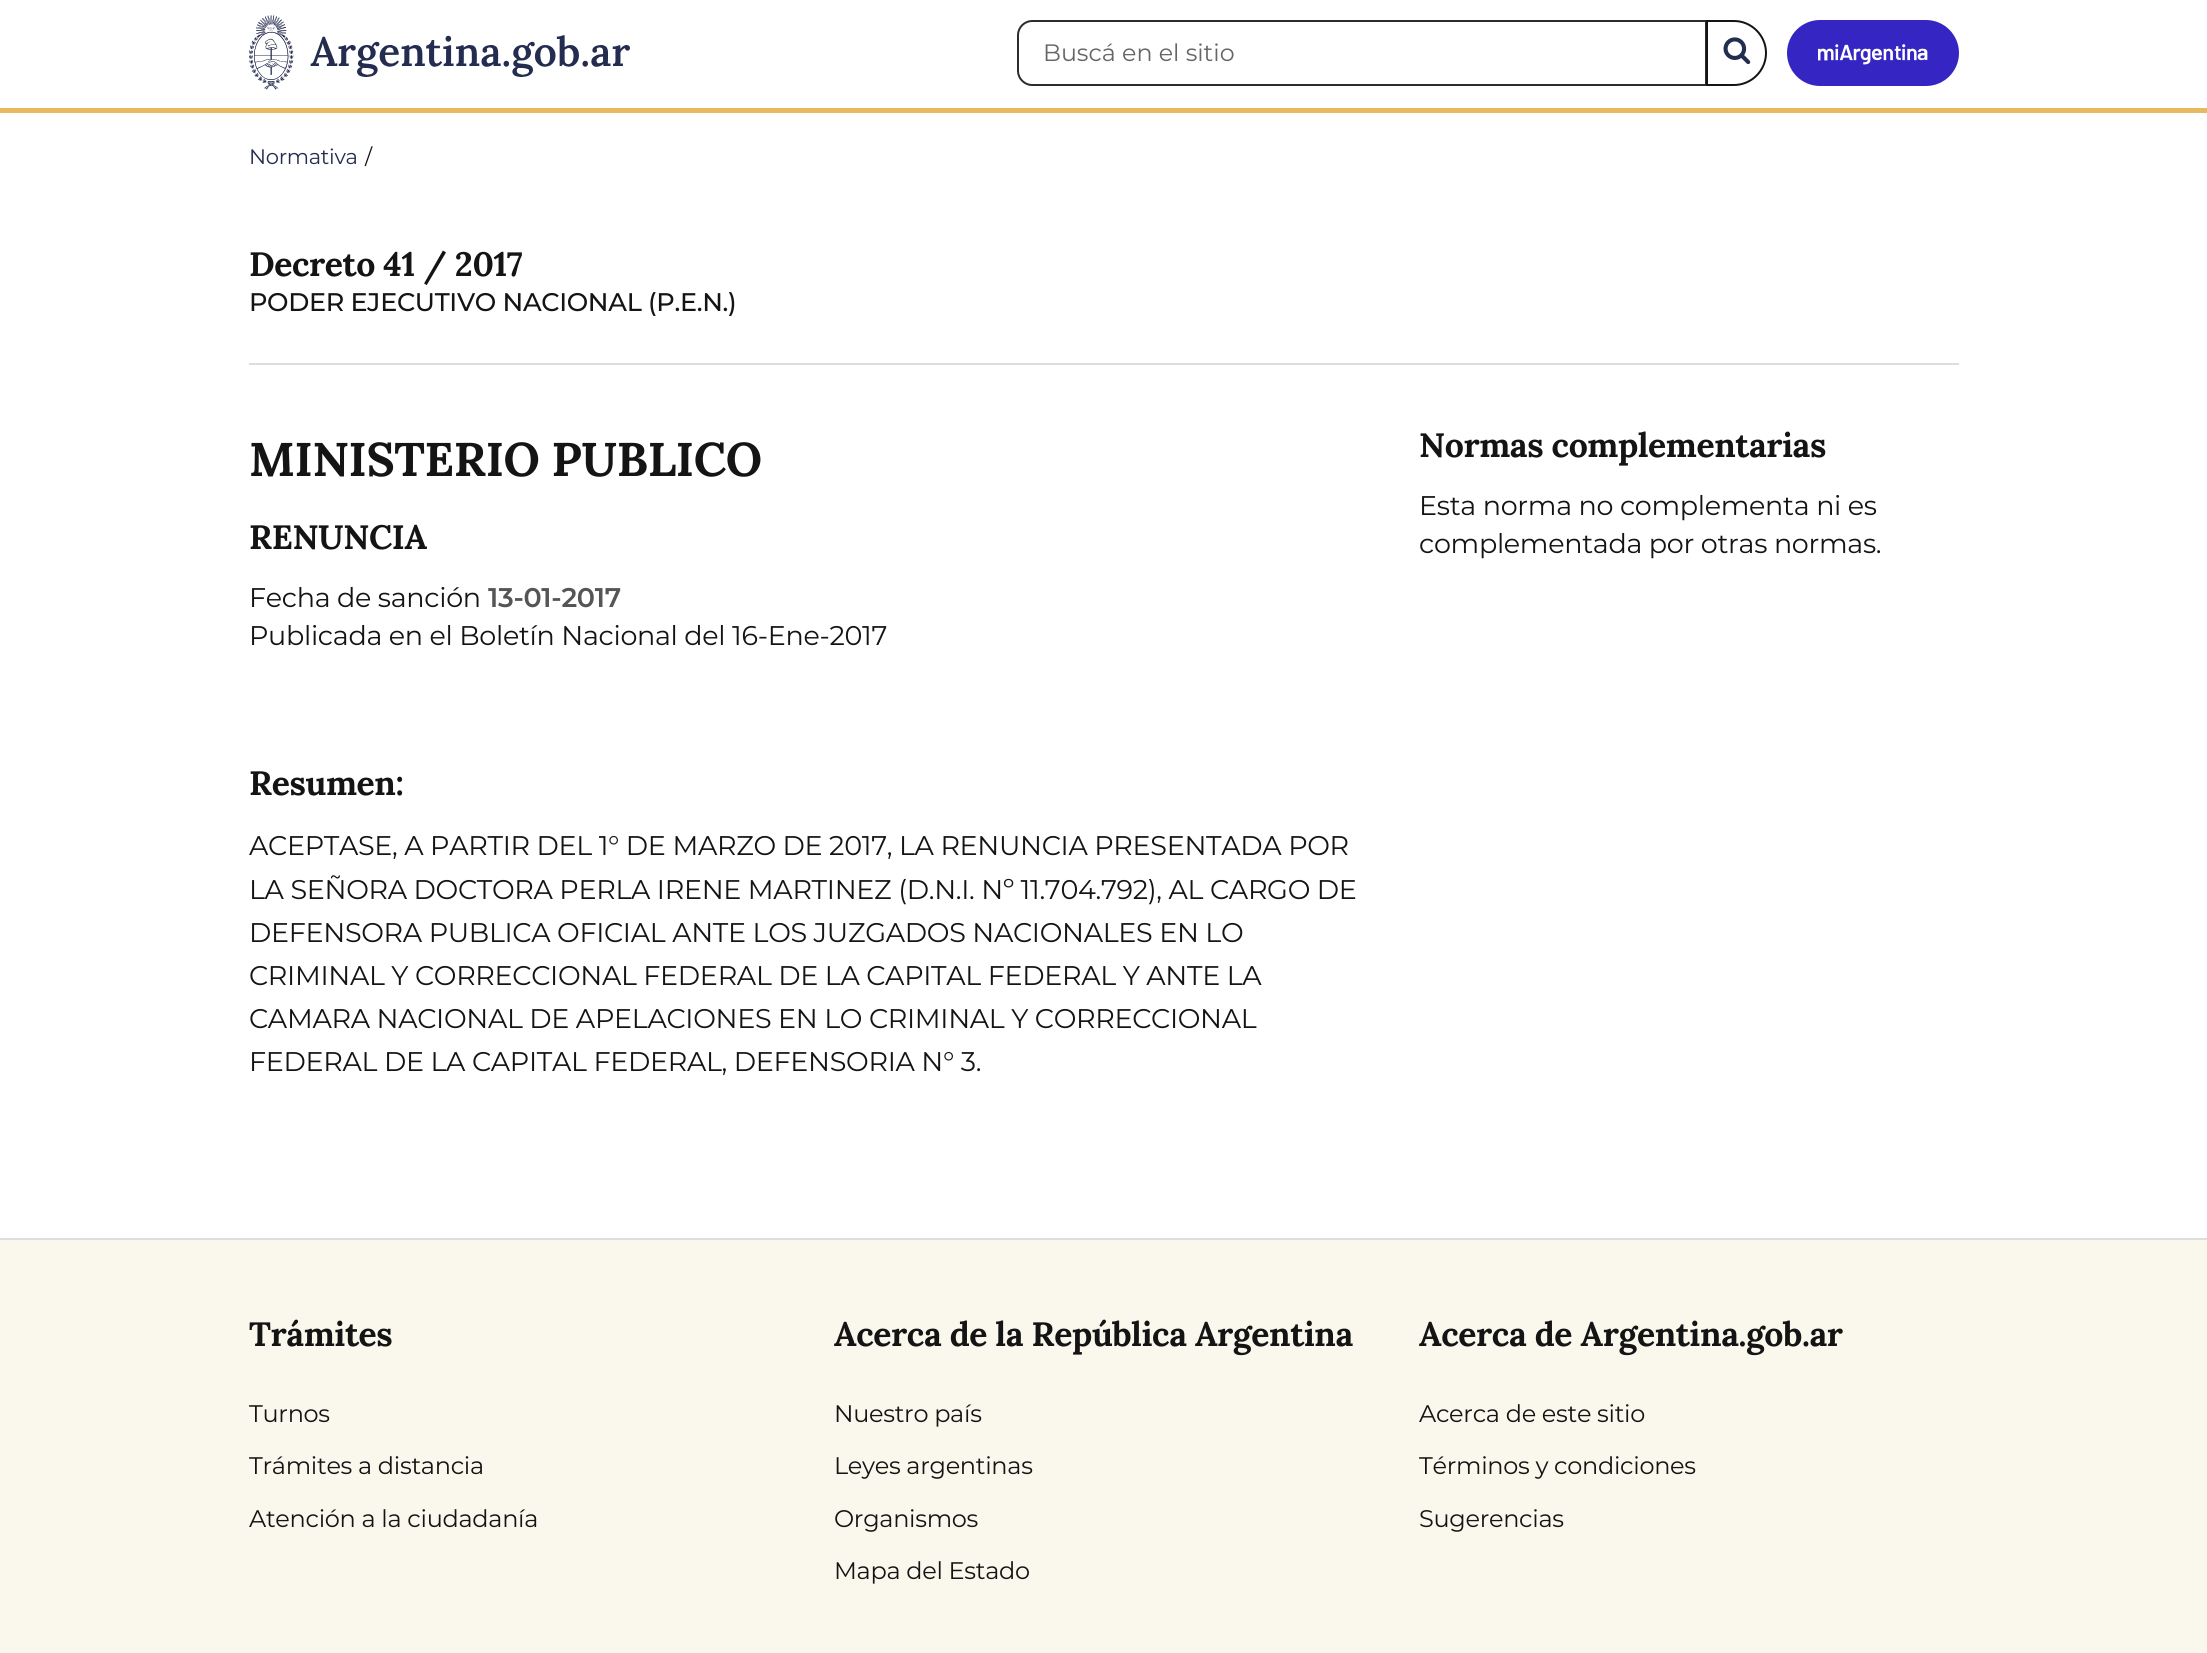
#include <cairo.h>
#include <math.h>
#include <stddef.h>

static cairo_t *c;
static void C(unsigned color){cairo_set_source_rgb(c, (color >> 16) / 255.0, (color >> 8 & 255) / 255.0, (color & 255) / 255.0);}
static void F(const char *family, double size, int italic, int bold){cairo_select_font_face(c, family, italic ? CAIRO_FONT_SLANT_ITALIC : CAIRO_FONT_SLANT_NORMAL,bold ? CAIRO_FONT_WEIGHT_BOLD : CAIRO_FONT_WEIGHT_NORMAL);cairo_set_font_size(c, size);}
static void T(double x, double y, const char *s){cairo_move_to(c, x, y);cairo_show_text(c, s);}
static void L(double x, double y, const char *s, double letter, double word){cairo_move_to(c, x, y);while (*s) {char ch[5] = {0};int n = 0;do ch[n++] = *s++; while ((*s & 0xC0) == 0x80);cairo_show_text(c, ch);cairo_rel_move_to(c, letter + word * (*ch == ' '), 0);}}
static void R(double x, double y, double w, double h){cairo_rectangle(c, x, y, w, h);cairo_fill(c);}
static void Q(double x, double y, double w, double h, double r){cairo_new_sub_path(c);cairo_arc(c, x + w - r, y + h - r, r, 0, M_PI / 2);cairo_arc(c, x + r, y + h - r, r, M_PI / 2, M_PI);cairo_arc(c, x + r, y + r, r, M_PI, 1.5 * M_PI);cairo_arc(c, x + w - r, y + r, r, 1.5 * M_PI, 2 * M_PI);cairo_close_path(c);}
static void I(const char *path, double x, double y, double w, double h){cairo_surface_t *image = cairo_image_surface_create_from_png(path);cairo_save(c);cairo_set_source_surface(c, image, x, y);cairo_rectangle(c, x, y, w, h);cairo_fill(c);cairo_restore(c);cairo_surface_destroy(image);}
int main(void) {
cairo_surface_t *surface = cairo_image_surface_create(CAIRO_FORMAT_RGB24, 2207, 1653);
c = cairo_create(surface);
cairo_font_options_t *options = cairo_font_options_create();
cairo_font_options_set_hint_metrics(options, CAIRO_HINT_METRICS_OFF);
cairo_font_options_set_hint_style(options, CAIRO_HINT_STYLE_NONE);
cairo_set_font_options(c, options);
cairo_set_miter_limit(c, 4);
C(0xffffff);
cairo_paint(c);
C(0xe7ba61);
R(0,108,2207,5);
I("1.png",249,15,381,75);
cairo_new_path(c);
cairo_move_to(c,1032,21);
cairo_line_to(c,1706,21);
cairo_line_to(c,1706,85);
cairo_line_to(c,1032,85);
cairo_curve_to(c,1024.5,85,1018,78.5,1018,71);
cairo_line_to(c,1018,35);
cairo_curve_to(c,1018,27.5,1024.5,21,1032,21);
cairo_close_path(c);
C(0x2c2c2c);
cairo_stroke(c);
F("Montserrat",23.75,0,0);
C(0x666666);
T(1043,61,"Buscá en el sitio");
C(0xffffff);
cairo_new_path(c);
cairo_move_to(c,1707,21);
cairo_line_to(c,1734,21);
cairo_curve_to(c,1751.5,21,1766,35.5,1766,53);
cairo_curve_to(c,1766,70.5,1751.5,85,1734,85);
cairo_line_to(c,1707,85);
cairo_close_path(c);
cairo_fill_preserve(c);
C(0x141414);
cairo_stroke(c);
I("2.png",1723,37,28,28);
C(0x3526c3);
Q(1787,20,172,66,33);
cairo_fill(c);
I("3.png",1818,44,110,21);
F("Montserrat",21,0,0);
C(0x232d4f);
L(249,164,"Normativa",-.3,0);
C(0x141414);
L(365,164,"/",-.3,0);
F("Lora",33.75,0,1);
L(249,276,"Decreto 41 / 2017",-.4,0);
F("Montserrat Medium",25.5,0,0);
L(249,311,"PODER EJECUTIVO NACIONAL (P.E.N.)",-.3,0);
C(0xdddddd);
R(249,363,1710,2);
F("Lora",47.25,0,1);
C(0x141414);
L(249,476,"MINISTERIO PUBLICO",-.4,0);
F("Lora",33.75,0,1);
L(249,549,"RENUNCIA",-.4,0);
F("Montserrat",27,0,0);
L(249,607,"Fecha de sanción",-.3,0);
F("Montserrat SemiBold",27,0,0);
C(0x555555);
L(488,607,"13-01-2017",-.3,0);
F("Montserrat",27,0,0);
C(0x141414);
L(249,645,"Publicada en el Boletín Nacional del 16-Ene-2017",-.3,0);
F("Lora",33.75,0,1);
L(249,795,"Resumen:",-.4,0);
F("Montserrat",27,0,0);
L(249,855,"ACEPTASE, A PARTIR DEL 1° DE MARZO DE 2017, LA RENUNCIA PRESENTADA POR",-.3,0);
L(249,899,"LA SEÑORA DOCTORA PERLA IRENE MARTINEZ (D.N.I. Nº 11.704.792), AL CARGO DE",-.3,0);
L(249,942,"DEFENSORA PUBLICA OFICIAL ANTE LOS JUZGADOS NACIONALES EN LO",-.3,0);
L(249,985,"CRIMINAL Y CORRECCIONAL FEDERAL DE LA CAPITAL FEDERAL Y ANTE LA",-.3,0);
L(249,1028,"CAMARA NACIONAL DE APELACIONES EN LO CRIMINAL Y CORRECCIONAL",-.3,0);
L(249,1071,"FEDERAL DE LA CAPITAL FEDERAL, DEFENSORIA N° 3.",-.3,0);
F("Lora",33.75,0,1);
L(1419,457,"Normas complementarias",-.4,0);
F("Montserrat",27,0,0);
L(1419,515,"Esta norma no complementa ni es",-.3,0);
L(1419,553,"complementada por otras normas.",-.3,0);
C(0xfaf8ed);
R(0,1240,2207,413);
C(0xdddddd);
R(0,1238,2207,2);
F("Lora",33.75,0,1);
C(0x141414);
L(249,1346,"Trámites",-.4,0);
F("Montserrat",24,0,0);
L(249,1422,"Turnos",-.3,0);
L(249,1474,"Trámites a distancia",-.3,0);
L(249,1527,"Atención a la ciudadanía",-.3,0);
F("Lora",33.75,0,1);
L(834,1346,"Acerca de la República Argentina",-.4,0);
F("Montserrat",24,0,0);
L(834,1422,"Nuestro país",-.3,0);
L(834,1474,"Leyes argentinas",-.3,0);
L(834,1527,"Organismos",-.3,0);
L(834,1579,"Mapa del Estado",-.3,0);
F("Lora",33.75,0,1);
L(1419,1346,"Acerca de Argentina.gob.ar",-.4,0);
F("Montserrat",24,0,0);
L(1419,1422,"Acerca de este sitio",-.3,0);
L(1419,1474,"Términos y condiciones",-.3,0);
L(1419,1527,"Sugerencias",-.3,0);
cairo_surface_write_to_png(surface, "o.png");
cairo_font_options_destroy(options);
cairo_destroy(c);
cairo_surface_destroy(surface);
return 0;
}
